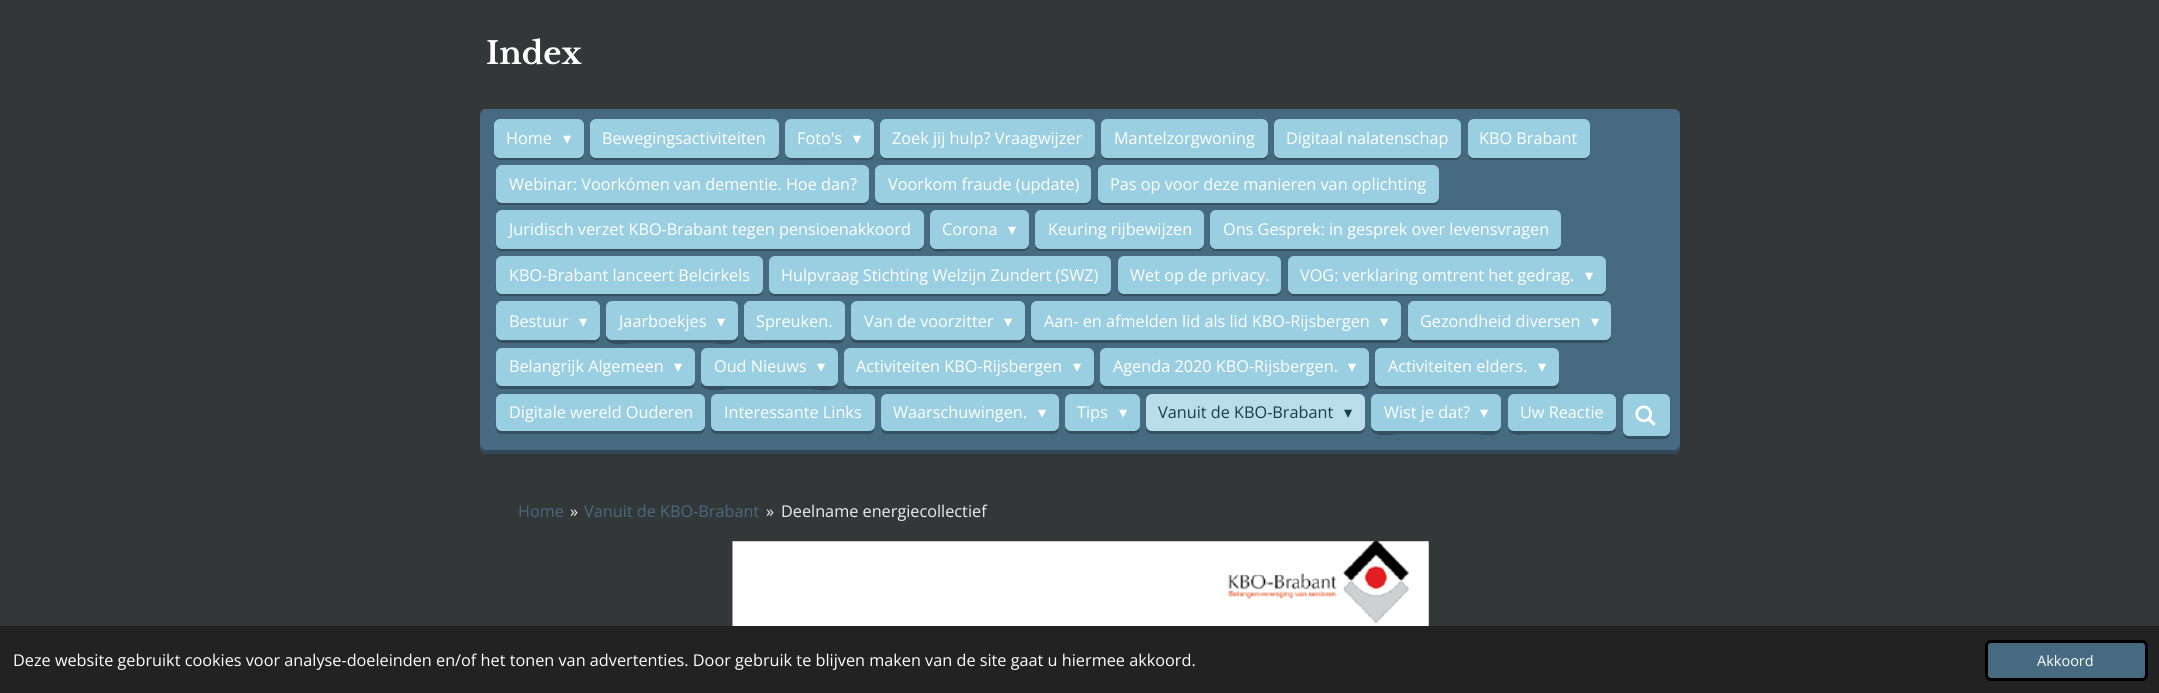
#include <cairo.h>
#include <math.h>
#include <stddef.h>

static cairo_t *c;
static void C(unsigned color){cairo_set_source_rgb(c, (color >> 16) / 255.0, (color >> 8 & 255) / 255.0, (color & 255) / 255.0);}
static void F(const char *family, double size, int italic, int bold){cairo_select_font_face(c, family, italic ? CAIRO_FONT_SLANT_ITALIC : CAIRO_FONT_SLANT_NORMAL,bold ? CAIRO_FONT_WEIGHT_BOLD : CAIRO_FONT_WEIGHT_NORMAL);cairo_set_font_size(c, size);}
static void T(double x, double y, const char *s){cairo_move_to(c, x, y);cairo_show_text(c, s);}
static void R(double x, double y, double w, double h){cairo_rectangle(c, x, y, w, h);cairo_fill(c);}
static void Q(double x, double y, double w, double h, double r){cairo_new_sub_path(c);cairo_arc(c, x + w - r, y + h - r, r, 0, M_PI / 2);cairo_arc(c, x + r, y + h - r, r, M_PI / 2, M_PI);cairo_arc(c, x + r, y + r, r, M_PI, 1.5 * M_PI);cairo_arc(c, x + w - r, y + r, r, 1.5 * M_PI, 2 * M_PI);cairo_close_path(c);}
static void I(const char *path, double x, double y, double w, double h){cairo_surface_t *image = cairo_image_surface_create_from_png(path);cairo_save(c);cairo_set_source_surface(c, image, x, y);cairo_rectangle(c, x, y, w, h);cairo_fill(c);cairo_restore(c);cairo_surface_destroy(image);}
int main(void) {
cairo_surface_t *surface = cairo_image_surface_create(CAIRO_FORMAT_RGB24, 2159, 693);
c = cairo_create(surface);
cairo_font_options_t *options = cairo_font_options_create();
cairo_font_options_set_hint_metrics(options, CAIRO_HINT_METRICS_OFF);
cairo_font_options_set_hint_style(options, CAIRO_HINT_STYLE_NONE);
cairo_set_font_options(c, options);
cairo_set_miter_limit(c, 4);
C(0x343738);
cairo_paint(c);
F("Libre Baskerville",31,0,1);
C(0xffffff);
T(486,64,"Index");
C(0x466a80);
Q(480,109,1200,345,6);
cairo_fill(c);
cairo_set_source_rgba(c,0,0,0,0.3);
cairo_new_path(c);
cairo_move_to(c,480,444);
cairo_line_to(c,480,448);
cairo_curve_to(c,480,451,483,454,486,454);
cairo_line_to(c,1674,454);
cairo_curve_to(c,1677,454,1680,451,1680,448);
cairo_line_to(c,1680,444);
cairo_curve_to(c,1680,447,1677,450,1674,450);
cairo_line_to(c,486,450);
cairo_curve_to(c,483,450,480,447,480,444);
cairo_close_path(c);
cairo_fill(c);
C(0x355060);
cairo_new_path(c);
cairo_move_to(c,494,153);
cairo_line_to(c,494,154);
cairo_curve_to(c,494,157,497,160,500,160);
cairo_line_to(c,578,160);
cairo_curve_to(c,581,160,584,157,584,154);
cairo_line_to(c,584,125);
cairo_line_to(c,584,151);
cairo_curve_to(c,584,155,581,158,578,158);
cairo_line_to(c,500,158);
cairo_curve_to(c,497,158,495,156,494,153);
cairo_close_path(c);
cairo_fill(c);
C(0x9acfe1);
Q(494,119,90,39,6);
cairo_fill(c);
F("Open Sans",16.25,0,0);
C(0xffffff);
T(506,144,"Home");
F("DejaVu Sans",16.25,0,0);
T(563,144,"▾");
C(0x355060);
cairo_new_path(c);
cairo_move_to(c,590,151);
cairo_curve_to(c,590,155,591,160,596,160);
cairo_line_to(c,773,160);
cairo_curve_to(c,781,160,779,150,779,145);
cairo_line_to(c,779,125);
cairo_line_to(c,779,151);
cairo_curve_to(c,779,155,776,158,772,158);
cairo_line_to(c,596,158);
cairo_curve_to(c,593,158,590,155,590,151);
cairo_close_path(c);
cairo_fill(c);
C(0x9acfe1);
Q(590,119,189,39,6);
cairo_fill(c);
F("Open Sans",16.25,0,0);
C(0xffffff);
T(602,144,"Bewegingsactiviteiten");
C(0x355060);
cairo_new_path(c);
cairo_move_to(c,785,151);
cairo_curve_to(c,785,163,793,160,804,160);
cairo_line_to(c,868,160);
cairo_curve_to(c,876,160,874,150,874,145);
cairo_line_to(c,874,125);
cairo_line_to(c,874,151);
cairo_curve_to(c,874,155,871,158,868,158);
cairo_line_to(c,791,158);
cairo_curve_to(c,788,158,785,155,785,151);
cairo_close_path(c);
cairo_fill(c);
C(0x9acfe1);
Q(785,119,89,39,6);
cairo_fill(c);
C(0xffffff);
T(797,144,"Foto's");
F("DejaVu Sans",16.25,0,0);
T(853,144,"▾");
C(0x355060);
cairo_new_path(c);
cairo_move_to(c,880,151);
cairo_line_to(c,880,154);
cairo_curve_to(c,880,157,883,160,886,160);
cairo_line_to(c,1089,160);
cairo_curve_to(c,1092,160,1095,157,1095,154);
cairo_line_to(c,1095,151);
cairo_curve_to(c,1095,155,1092,158,1089,158);
cairo_line_to(c,886,158);
cairo_curve_to(c,883,158,880,155,880,151);
cairo_close_path(c);
cairo_fill(c);
C(0x9acfe1);
Q(880,119,215,39,6);
cairo_fill(c);
F("Open Sans",16.25,0,0);
C(0xffffff);
T(892,144,"Zoek jij hulp? Vraagwijzer");
C(0x355060);
cairo_new_path(c);
cairo_move_to(c,1101,125);
cairo_line_to(c,1101,145);
cairo_curve_to(c,1101,150,1099,160,1107,160);
cairo_line_to(c,1262,160);
cairo_curve_to(c,1270,160,1268,150,1268,145);
cairo_line_to(c,1267,125);
cairo_line_to(c,1268,151);
cairo_curve_to(c,1268,155,1265,158,1261,158);
cairo_line_to(c,1108,158);
cairo_curve_to(c,1104,158,1101,155,1101,151);
cairo_close_path(c);
cairo_fill(c);
C(0x9acfe1);
Q(1101,119,167,39,6);
cairo_fill(c);
C(0xffffff);
T(1114,144,"Mantelzorgwoning");
C(0x355060);
cairo_new_path(c);
cairo_move_to(c,1274,153);
cairo_line_to(c,1274,154);
cairo_curve_to(c,1274,157,1277,160,1280,160);
cairo_line_to(c,1455,160);
cairo_curve_to(c,1458,160,1461,157,1461,154);
cairo_line_to(c,1461,153);
cairo_curve_to(c,1460,156,1458,158,1455,158);
cairo_line_to(c,1280,158);
cairo_curve_to(c,1277,158,1275,156,1274,153);
cairo_close_path(c);
cairo_fill(c);
C(0x9acfe1);
Q(1274,119,187,39,6);
cairo_fill(c);
C(0xffffff);
T(1286,144,"Digitaal nalatenschap");
C(0x355060);
cairo_new_path(c);
cairo_move_to(c,1468,154);
cairo_curve_to(c,1468,157,1471,160,1474,160);
cairo_line_to(c,1584,160);
cairo_curve_to(c,1587,160,1590,157,1590,154);
cairo_line_to(c,1590,151);
cairo_curve_to(c,1590,155,1587,158,1584,158);
cairo_line_to(c,1474,158);
cairo_curve_to(c,1471,158,1469,156,1468,154);
cairo_close_path(c);
cairo_fill(c);
C(0x9acfe1);
Q(1468,119,122,39,6);
cairo_fill(c);
C(0xffffff);
T(1479,144,"KBO Brabant");
C(0x355060);
cairo_new_path(c);
cairo_move_to(c,496,172);
cairo_line_to(c,496,191);
cairo_curve_to(c,496,195,494,205,502,205);
cairo_line_to(c,863,205);
cairo_curve_to(c,871,205,869,195,869,191);
cairo_line_to(c,869,172);
cairo_line_to(c,869,196);
cairo_curve_to(c,869,200,866,202,862,202);
cairo_line_to(c,502,202);
cairo_curve_to(c,499,202,496,200,496,196);
cairo_close_path(c);
cairo_fill(c);
C(0x9acfe1);
Q(496,165,373,38,6);
cairo_fill(c);
C(0xffffff);
T(509,190,"Webinar: Voorkómen van dementie. Hoe dan?");
C(0x355060);
cairo_new_path(c);
cairo_move_to(c,875,196);
cairo_line_to(c,875,199);
cairo_curve_to(c,875,202,878,205,881,205);
cairo_line_to(c,1085,205);
cairo_curve_to(c,1088,205,1091,202,1091,199);
cairo_line_to(c,1091,198);
cairo_curve_to(c,1090,201,1088,202,1085,202);
cairo_line_to(c,881,202);
cairo_curve_to(c,878,202,875,200,875,196);
cairo_close_path(c);
cairo_fill(c);
C(0x9acfe1);
Q(875,165,216,38,6);
cairo_fill(c);
C(0xffffff);
T(888,190,"Voorkom fraude (update)");
C(0x355060);
cairo_new_path(c);
cairo_move_to(c,1098,199);
cairo_curve_to(c,1098,202,1100,205,1104,205);
cairo_line_to(c,1433,205);
cairo_curve_to(c,1441,205,1439,195,1439,191);
cairo_line_to(c,1439,172);
cairo_line_to(c,1439,196);
cairo_curve_to(c,1439,200,1436,202,1432,202);
cairo_line_to(c,1104,202);
cairo_curve_to(c,1101,202,1099,201,1098,199);
cairo_close_path(c);
cairo_fill(c);
C(0x9acfe1);
Q(1098,165,341,38,6);
cairo_fill(c);
C(0xffffff);
T(1110,190,"Pas op voor deze manieren van oplichting");
C(0x355060);
cairo_new_path(c);
cairo_move_to(c,496,217);
cairo_line_to(c,496,236);
cairo_curve_to(c,496,241,494,251,502,251);
cairo_line_to(c,918,251);
cairo_curve_to(c,926,251,924,241,924,236);
cairo_line_to(c,924,217);
cairo_line_to(c,924,242);
cairo_curve_to(c,924,246,921,249,918,249);
cairo_line_to(c,502,249);
cairo_curve_to(c,499,249,496,246,496,242);
cairo_close_path(c);
cairo_fill(c);
C(0x9acfe1);
Q(496,210,428,39,6);
cairo_fill(c);
C(0xffffff);
T(509,235,"Juridisch verzet KBO-Brabant tegen pensioenakkoord");
C(0x355060);
cairo_new_path(c);
cairo_move_to(c,930,242);
cairo_curve_to(c,930,255,940,251,950,251);
cairo_line_to(c,1023,251);
cairo_curve_to(c,1031,251,1029,241,1029,236);
cairo_line_to(c,1029,217);
cairo_line_to(c,1029,242);
cairo_curve_to(c,1029,246,1026,249,1022,249);
cairo_line_to(c,936,249);
cairo_curve_to(c,933,249,930,246,930,242);
cairo_close_path(c);
cairo_fill(c);
C(0x9acfe1);
Q(930,210,99,39,6);
cairo_fill(c);
C(0xffffff);
T(942,235,"Corona");
F("DejaVu Sans",16.25,0,0);
T(1008,235,"▾");
C(0x355060);
cairo_new_path(c);
cairo_move_to(c,1035,242);
cairo_curve_to(c,1035,247,1036,251,1041,251);
cairo_line_to(c,1198,251);
cairo_curve_to(c,1206,251,1204,241,1204,236);
cairo_line_to(c,1204,217);
cairo_line_to(c,1204,242);
cairo_curve_to(c,1204,246,1201,249,1198,249);
cairo_line_to(c,1041,249);
cairo_curve_to(c,1038,249,1035,246,1035,242);
cairo_close_path(c);
cairo_fill(c);
C(0x9acfe1);
Q(1035,210,169,39,6);
cairo_fill(c);
F("Open Sans",16.25,0,0);
C(0xffffff);
T(1048,235,"Keuring rijbewijzen");
C(0x355060);
cairo_new_path(c);
cairo_move_to(c,1210,242);
cairo_line_to(c,1210,245);
cairo_curve_to(c,1210,248,1213,251,1216,251);
cairo_line_to(c,1555,251);
cairo_curve_to(c,1558,251,1561,248,1561,245);
cairo_line_to(c,1561,244);
cairo_curve_to(c,1560,247,1558,249,1555,249);
cairo_line_to(c,1216,249);
cairo_curve_to(c,1213,249,1210,246,1210,242);
cairo_close_path(c);
cairo_fill(c);
C(0x9acfe1);
Q(1210,210,351,39,6);
cairo_fill(c);
C(0xffffff);
T(1223,235,"Ons Gesprek: in gesprek over levensvragen");
C(0x355060);
cairo_new_path(c);
cairo_move_to(c,496,263);
cairo_line_to(c,496,282);
cairo_curve_to(c,496,286,494,296,502,296);
cairo_line_to(c,757,296);
cairo_curve_to(c,765,296,763,286,763,282);
cairo_line_to(c,762,263);
cairo_line_to(c,762,288);
cairo_curve_to(c,762,291,760,294,756,294);
cairo_line_to(c,502,294);
cairo_curve_to(c,499,294,496,291,496,288);
cairo_close_path(c);
cairo_fill(c);
C(0x9acfe1);
Q(496,256,267,38,6);
cairo_fill(c);
C(0xffffff);
T(509,281,"KBO-Brabant lanceert Belcirkels");
C(0x355060);
cairo_new_path(c);
cairo_move_to(c,769,289);
cairo_curve_to(c,769,293,771,296,775,296);
cairo_line_to(c,1105,296);
cairo_curve_to(c,1109,296,1111,293,1111,289);
cairo_curve_to(c,1110,292,1108,294,1105,294);
cairo_line_to(c,775,294);
cairo_curve_to(c,772,294,770,292,769,289);
cairo_close_path(c);
cairo_fill(c);
C(0x9acfe1);
Q(769,256,342,38,6);
cairo_fill(c);
C(0xffffff);
T(781,281,"Hulpvraag Stichting Welzijn Zundert (SWZ)");
C(0x355060);
cairo_new_path(c);
cairo_move_to(c,1118,290);
cairo_curve_to(c,1118,293,1121,296,1124,296);
cairo_line_to(c,1275,296);
cairo_curve_to(c,1278,296,1281,293,1281,290);
cairo_line_to(c,1281,289);
cairo_curve_to(c,1280,292,1278,294,1275,294);
cairo_line_to(c,1124,294);
cairo_curve_to(c,1121,294,1119,292,1118,290);
cairo_close_path(c);
cairo_fill(c);
C(0x9acfe1);
Q(1118,256,163,38,6);
cairo_fill(c);
C(0xffffff);
T(1130,281,"Wet op de privacy.");
C(0x355060);
cairo_new_path(c);
cairo_move_to(c,1288,290);
cairo_curve_to(c,1288,293,1291,296,1294,296);
cairo_line_to(c,1600,296);
cairo_curve_to(c,1604,296,1606,293,1606,289);
cairo_curve_to(c,1605,292,1603,294,1600,294);
cairo_line_to(c,1294,294);
cairo_curve_to(c,1291,294,1289,292,1288,290);
cairo_close_path(c);
cairo_fill(c);
C(0x9acfe1);
Q(1288,256,318,38,6);
cairo_fill(c);
C(0xffffff);
T(1300,281,"VOG: verklaring omtrent het gedrag.");
F("DejaVu Sans",16.25,0,0);
T(1585,281,"▾");
C(0x355060);
cairo_new_path(c);
cairo_move_to(c,496,308);
cairo_line_to(c,496,328);
cairo_curve_to(c,496,333,494,343,502,343);
cairo_line_to(c,579,343);
cairo_curve_to(c,591,343,600,347,600,334);
cairo_curve_to(c,600,337,597,340,594,340);
cairo_line_to(c,502,340);
cairo_curve_to(c,499,340,496,337,496,334);
cairo_close_path(c);
cairo_fill(c);
C(0x9acfe1);
Q(496,301,104,39,6);
cairo_fill(c);
F("Open Sans",16.25,0,0);
C(0xffffff);
T(509,327,"Bestuur");
F("DejaVu Sans",16.25,0,0);
T(579,327,"▾");
C(0x355060);
cairo_new_path(c);
cairo_move_to(c,606,308);
cairo_line_to(c,606,338);
cairo_curve_to(c,608,348,631,343,632,343);
cairo_line_to(c,712,343);
cairo_curve_to(c,713,343,736,348,738,338);
cairo_line_to(c,738,314);
cairo_line_to(c,738,308);
cairo_line_to(c,738,334);
cairo_curve_to(c,738,337,735,340,731,340);
cairo_line_to(c,612,340);
cairo_curve_to(c,609,340,606,337,606,334);
cairo_close_path(c);
cairo_fill(c);
C(0x9acfe1);
Q(606,301,132,39,6);
cairo_fill(c);
F("Open Sans",16.25,0,0);
C(0xffffff);
T(619,327,"Jaarboekjes");
F("DejaVu Sans",16.25,0,0);
T(717,327,"▾");
C(0x355060);
cairo_new_path(c);
cairo_move_to(c,744,336);
cairo_curve_to(c,744,347,757,343,765,343);
cairo_line_to(c,824,343);
cairo_curve_to(c,836,343,845,347,845,334);
cairo_curve_to(c,845,337,842,340,839,340);
cairo_line_to(c,750,340);
cairo_curve_to(c,747,340,745,338,744,336);
cairo_close_path(c);
cairo_fill(c);
C(0x9acfe1);
Q(744,301,101,39,6);
cairo_fill(c);
F("Open Sans",16.25,0,0);
C(0xffffff);
T(756,327,"Spreuken.");
C(0x355060);
cairo_new_path(c);
cairo_move_to(c,851,308);
cairo_line_to(c,851,328);
cairo_curve_to(c,851,333,849,343,857,343);
cairo_line_to(c,1019,343);
cairo_curve_to(c,1024,343,1025,338,1025,334);
cairo_curve_to(c,1025,337,1022,340,1019,340);
cairo_line_to(c,858,340);
cairo_curve_to(c,854,340,851,337,851,334);
cairo_close_path(c);
cairo_fill(c);
C(0x9acfe1);
Q(851,301,174,39,6);
cairo_fill(c);
C(0xffffff);
T(864,327,"Van de voorzitter");
F("DejaVu Sans",16.25,0,0);
T(1004,327,"▾");
C(0x355060);
cairo_new_path(c);
cairo_move_to(c,1031,308);
cairo_line_to(c,1031,328);
cairo_curve_to(c,1031,333,1029,343,1037,343);
cairo_line_to(c,1395,343);
cairo_curve_to(c,1399,343,1401,339,1401,336);
cairo_curve_to(c,1400,338,1398,340,1395,340);
cairo_line_to(c,1038,340);
cairo_curve_to(c,1034,340,1031,337,1031,334);
cairo_close_path(c);
cairo_fill(c);
C(0x9acfe1);
Q(1031,301,370,39,6);
cairo_fill(c);
F("Open Sans",16.25,0,0);
C(0xffffff);
T(1044,327,"Aan- en afmelden lid als lid KBO-Rijsbergen");
F("DejaVu Sans",16.25,0,0);
T(1380,327,"▾");
C(0x355060);
cairo_new_path(c);
cairo_move_to(c,1408,336);
cairo_line_to(c,1408,337);
cairo_curve_to(c,1408,340,1411,343,1414,343);
cairo_line_to(c,1605,343);
cairo_curve_to(c,1608,343,1611,340,1611,337);
cairo_line_to(c,1611,336);
cairo_curve_to(c,1610,338,1608,340,1605,340);
cairo_line_to(c,1414,340);
cairo_curve_to(c,1411,340,1409,338,1408,336);
cairo_close_path(c);
cairo_fill(c);
C(0x9acfe1);
Q(1408,301,203,39,6);
cairo_fill(c);
F("Open Sans",16.25,0,0);
C(0xffffff);
T(1420,327,"Gezondheid diversen");
F("DejaVu Sans",16.25,0,0);
T(1591,327,"▾");
C(0x355060);
cairo_new_path(c);
cairo_move_to(c,496,354);
cairo_line_to(c,496,374);
cairo_curve_to(c,496,379,494,389,502,389);
cairo_line_to(c,689,389);
cairo_curve_to(c,694,389,695,384,695,380);
cairo_curve_to(c,695,383,692,386,689,386);
cairo_line_to(c,502,386);
cairo_curve_to(c,499,386,496,383,496,380);
cairo_close_path(c);
cairo_fill(c);
C(0x9acfe1);
Q(496,348,199,38,6);
cairo_fill(c);
F("Open Sans",16.25,0,0);
C(0xffffff);
T(509,372,"Belangrijk Algemeen");
F("DejaVu Sans",16.25,0,0);
T(674,372,"▾");
C(0x355060);
cairo_new_path(c);
cairo_move_to(c,701,354);
cairo_line_to(c,701,384);
cairo_curve_to(c,703,394,728,389,728,389);
cairo_line_to(c,811,389);
cairo_curve_to(c,811,389,836,394,838,384);
cairo_line_to(c,838,360);
cairo_line_to(c,837,354);
cairo_line_to(c,838,380);
cairo_curve_to(c,838,383,835,386,831,386);
cairo_line_to(c,708,386);
cairo_curve_to(c,704,386,701,383,701,380);
cairo_close_path(c);
cairo_fill(c);
C(0x9acfe1);
Q(701,348,137,38,6);
cairo_fill(c);
F("Open Sans",16.25,0,0);
C(0xffffff);
T(714,372,"Oud Nieuws");
F("DejaVu Sans",16.25,0,0);
T(817,372,"▾");
C(0x355060);
cairo_new_path(c);
cairo_move_to(c,844,382);
cairo_curve_to(c,844,385,846,389,850,389);
cairo_line_to(c,1088,389);
cairo_curve_to(c,1096,389,1094,379,1094,374);
cairo_line_to(c,1094,354);
cairo_line_to(c,1094,380);
cairo_curve_to(c,1094,383,1091,386,1088,386);
cairo_line_to(c,850,386);
cairo_curve_to(c,847,386,845,384,844,382);
cairo_close_path(c);
cairo_fill(c);
C(0x9acfe1);
Q(844,348,250,38,6);
cairo_fill(c);
F("Open Sans",16.25,0,0);
C(0xffffff);
T(856,372,"Activiteiten KBO-Rijsbergen");
F("DejaVu Sans",16.25,0,0);
T(1073,372,"▾");
C(0x355060);
cairo_new_path(c);
cairo_move_to(c,1100,380);
cairo_curve_to(c,1100,384,1101,389,1106,389);
cairo_line_to(c,1363,389);
cairo_curve_to(c,1371,389,1369,379,1369,374);
cairo_line_to(c,1369,354);
cairo_line_to(c,1369,380);
cairo_curve_to(c,1369,383,1366,386,1362,386);
cairo_line_to(c,1106,386);
cairo_curve_to(c,1103,386,1100,383,1100,380);
cairo_close_path(c);
cairo_fill(c);
C(0x9acfe1);
Q(1100,348,269,38,6);
cairo_fill(c);
F("Open Sans",16.25,0,0);
C(0xffffff);
T(1113,372,"Agenda 2020 KBO-Rijsbergen.");
F("DejaVu Sans",16.25,0,0);
T(1348,372,"▾");
C(0x355060);
cairo_new_path(c);
cairo_move_to(c,1375,380);
cairo_curve_to(c,1375,384,1376,389,1381,389);
cairo_line_to(c,1553,389);
cairo_curve_to(c,1561,389,1559,379,1559,374);
cairo_line_to(c,1559,354);
cairo_line_to(c,1559,380);
cairo_curve_to(c,1559,383,1556,386,1552,386);
cairo_line_to(c,1381,386);
cairo_curve_to(c,1378,386,1375,383,1375,380);
cairo_close_path(c);
cairo_fill(c);
C(0x9acfe1);
Q(1375,348,184,38,6);
cairo_fill(c);
F("Open Sans",16.25,0,0);
C(0xffffff);
T(1388,372,"Activiteiten elders.");
F("DejaVu Sans",16.25,0,0);
T(1538,372,"▾");
C(0x355060);
cairo_new_path(c);
cairo_move_to(c,496,400);
cairo_line_to(c,496,419);
cairo_curve_to(c,496,424,494,434,502,434);
cairo_line_to(c,699,434);
cairo_curve_to(c,704,434,705,429,705,425);
cairo_curve_to(c,705,428,702,431,699,431);
cairo_line_to(c,502,431);
cairo_curve_to(c,499,431,496,428,496,425);
cairo_close_path(c);
cairo_fill(c);
C(0x9acfe1);
Q(496,394,209,37,6);
cairo_fill(c);
F("Open Sans",16.25,0,0);
C(0xffffff);
T(509,418,"Digitale wereld Ouderen");
C(0x355060);
cairo_new_path(c);
cairo_move_to(c,711,400);
cairo_line_to(c,711,419);
cairo_curve_to(c,711,424,709,434,717,434);
cairo_line_to(c,869,434);
cairo_curve_to(c,874,434,875,429,875,425);
cairo_curve_to(c,875,428,872,431,869,431);
cairo_line_to(c,718,431);
cairo_curve_to(c,714,431,711,428,711,425);
cairo_close_path(c);
cairo_fill(c);
C(0x9acfe1);
Q(711,394,164,37,6);
cairo_fill(c);
C(0xffffff);
T(724,418,"Interessante Links");
C(0x355060);
cairo_new_path(c);
cairo_move_to(c,881,400);
cairo_line_to(c,881,419);
cairo_curve_to(c,881,424,879,434,887,434);
cairo_line_to(c,1053,434);
cairo_curve_to(c,1061,434,1059,424,1059,419);
cairo_line_to(c,1059,400);
cairo_line_to(c,1059,425);
cairo_curve_to(c,1059,428,1056,431,1052,431);
cairo_line_to(c,888,431);
cairo_curve_to(c,884,431,881,428,881,425);
cairo_close_path(c);
cairo_fill(c);
C(0x9acfe1);
Q(881,394,178,37,6);
cairo_fill(c);
C(0xffffff);
T(893,418,"Waarschuwingen.");
F("DejaVu Sans",16.25,0,0);
T(1038,418,"▾");
C(0x355060);
cairo_new_path(c);
cairo_move_to(c,1065,425);
cairo_curve_to(c,1065,436,1071,434,1082,434);
cairo_line_to(c,1124,434);
cairo_curve_to(c,1134,434,1140,436,1140,425);
cairo_curve_to(c,1140,428,1137,431,1134,431);
cairo_line_to(c,1071,431);
cairo_curve_to(c,1068,431,1065,428,1065,425);
cairo_close_path(c);
cairo_fill(c);
C(0x9acfe1);
Q(1065,394,75,37,6);
cairo_fill(c);
F("Open Sans",16.25,0,0);
C(0xffffff);
T(1077,418,"Tips");
F("DejaVu Sans",16.25,0,0);
T(1119,418,"▾");
C(0x355060);
cairo_new_path(c);
cairo_move_to(c,1146,400);
cairo_line_to(c,1146,419);
cairo_curve_to(c,1146,424,1144,434,1152,434);
cairo_line_to(c,1359,434);
cairo_curve_to(c,1364,434,1365,429,1365,425);
cairo_curve_to(c,1365,428,1362,431,1359,431);
cairo_line_to(c,1152,431);
cairo_curve_to(c,1149,431,1146,428,1146,425);
cairo_close_path(c);
cairo_fill(c);
C(0xb9deea);
Q(1146,394,219,37,6);
cairo_fill(c);
F("Open Sans",16.25,0,0);
C(0x173e4c);
T(1158,418,"Vanuit de KBO-Brabant");
F("DejaVu Sans",16.25,0,0);
T(1344,418,"▾");
C(0x355060);
cairo_new_path(c);
cairo_move_to(c,1371,400);
cairo_line_to(c,1371,429);
cairo_curve_to(c,1373,439,1396,434,1397,434);
cairo_line_to(c,1475,434);
cairo_curve_to(c,1482,434,1501,439,1501,427);
cairo_curve_to(c,1500,429,1498,431,1495,431);
cairo_line_to(c,1378,431);
cairo_curve_to(c,1374,431,1371,428,1371,425);
cairo_close_path(c);
cairo_fill(c);
C(0x9acfe1);
Q(1371,394,130,37,6);
cairo_fill(c);
F("Open Sans",16.25,0,0);
C(0xffffff);
T(1384,418,"Wist je dat?");
F("DejaVu Sans",16.25,0,0);
T(1480,418,"▾");
C(0x355060);
cairo_new_path(c);
cairo_move_to(c,1508,427);
cairo_curve_to(c,1508,438,1525,434,1530,434);
cairo_line_to(c,1594,434);
cairo_curve_to(c,1601,434,1616,438,1616,427);
cairo_curve_to(c,1615,429,1613,431,1610,431);
cairo_line_to(c,1514,431);
cairo_curve_to(c,1511,431,1509,430,1508,427);
cairo_close_path(c);
cairo_fill(c);
C(0x9acfe1);
Q(1508,394,108,37,6);
cairo_fill(c);
F("Open Sans",16.25,0,0);
C(0xffffff);
T(1520,418,"Uw Reactie");
C(0x344f60);
cairo_new_path(c);
cairo_move_to(c,1623,432);
cairo_curve_to(c,1623,440,1629,439,1635,439);
cairo_line_to(c,1658,439);
cairo_curve_to(c,1667,439,1670,439,1670,430);
cairo_curve_to(c,1670,433,1667,436,1664,436);
cairo_line_to(c,1629,436);
cairo_curve_to(c,1626,436,1624,435,1623,432);
cairo_close_path(c);
cairo_fill(c);
C(0x9acfe1);
Q(1623,394,47,42,6);
cairo_fill(c);
I("1.png",1635,405,21,21);
C(0x466a80);
T(518,517,"Home");
C(0xeeeeee);
T(570,517,"»");
C(0x466a80);
T(584,517,"Vanuit de KBO-Brabant");
C(0xeeeeee);
T(766,517,"»");
T(781,517,"Deelname energiecollectief");
I("2.png",732,541,697,85);
C(0x222222);
R(0,626,2159,67);
C(0xffffff);
T(13,666,"Deze website gebruikt cookies voor analyse-doeleinden en/of het tonen van advertenties. Door gebruik te blijven maken van de site gaat u hiermee akkoord.");
C(0x466a80);
Q(1986.5,641.5,160,38,4.5);
cairo_fill_preserve(c);
C(0x000000);
cairo_set_line_width(c,3);
cairo_stroke(c);
F("Open Sans",14.5,0,0);
C(0xffffff);
T(2037,666,"Akkoord");
cairo_surface_write_to_png(surface, "o.png");
cairo_font_options_destroy(options);
cairo_destroy(c);
cairo_surface_destroy(surface);
return 0;
}
